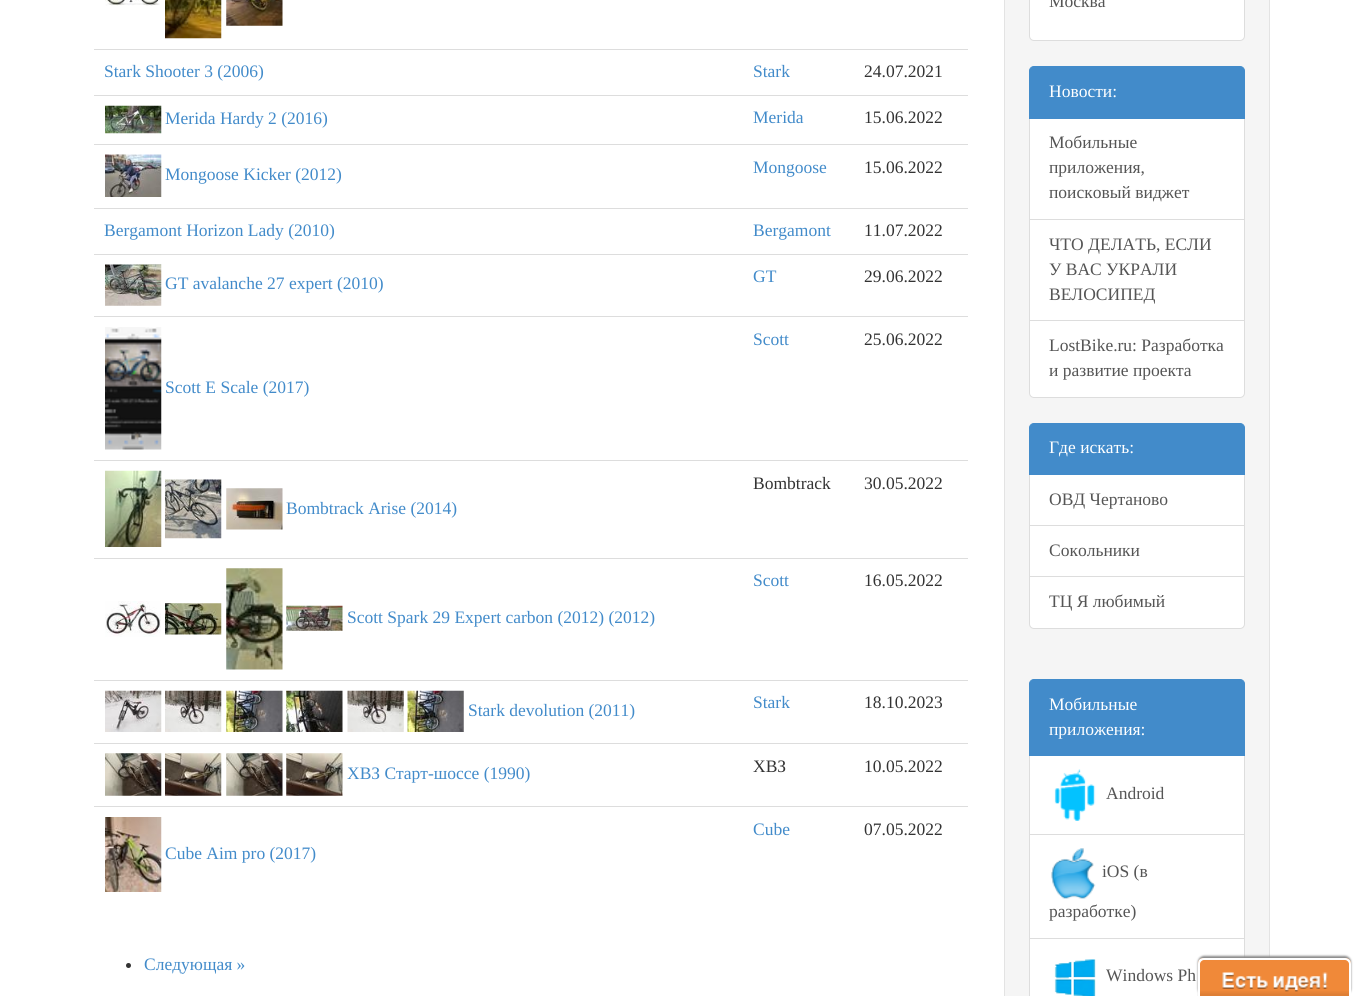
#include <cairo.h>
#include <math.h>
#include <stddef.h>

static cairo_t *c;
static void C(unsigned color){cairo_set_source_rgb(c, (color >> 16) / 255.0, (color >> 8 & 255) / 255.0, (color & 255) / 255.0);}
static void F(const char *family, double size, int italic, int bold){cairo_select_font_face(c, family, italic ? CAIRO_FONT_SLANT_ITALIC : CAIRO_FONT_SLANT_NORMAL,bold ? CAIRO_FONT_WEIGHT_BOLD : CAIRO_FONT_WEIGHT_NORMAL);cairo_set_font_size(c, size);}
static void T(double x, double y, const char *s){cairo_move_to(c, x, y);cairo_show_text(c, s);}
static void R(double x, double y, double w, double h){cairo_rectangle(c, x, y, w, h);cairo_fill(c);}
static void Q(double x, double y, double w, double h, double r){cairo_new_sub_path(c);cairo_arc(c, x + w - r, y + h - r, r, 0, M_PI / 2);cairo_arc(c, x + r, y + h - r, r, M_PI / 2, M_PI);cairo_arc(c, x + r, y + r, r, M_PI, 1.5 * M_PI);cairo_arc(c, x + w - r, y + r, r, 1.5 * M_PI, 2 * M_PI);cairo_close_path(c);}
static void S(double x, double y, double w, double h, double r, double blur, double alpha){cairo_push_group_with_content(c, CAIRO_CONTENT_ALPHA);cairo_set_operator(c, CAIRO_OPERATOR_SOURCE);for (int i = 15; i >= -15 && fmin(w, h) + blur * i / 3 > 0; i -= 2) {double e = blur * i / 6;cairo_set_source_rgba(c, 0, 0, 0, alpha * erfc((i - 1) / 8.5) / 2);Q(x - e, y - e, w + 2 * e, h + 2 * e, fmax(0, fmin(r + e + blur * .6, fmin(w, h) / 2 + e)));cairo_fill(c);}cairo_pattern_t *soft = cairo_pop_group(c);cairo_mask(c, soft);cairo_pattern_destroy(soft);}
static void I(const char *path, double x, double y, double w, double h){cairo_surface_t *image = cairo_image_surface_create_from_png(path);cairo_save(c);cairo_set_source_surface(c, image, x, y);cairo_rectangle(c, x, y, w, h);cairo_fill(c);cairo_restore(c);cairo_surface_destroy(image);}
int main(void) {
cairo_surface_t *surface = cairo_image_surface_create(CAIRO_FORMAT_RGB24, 1363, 996);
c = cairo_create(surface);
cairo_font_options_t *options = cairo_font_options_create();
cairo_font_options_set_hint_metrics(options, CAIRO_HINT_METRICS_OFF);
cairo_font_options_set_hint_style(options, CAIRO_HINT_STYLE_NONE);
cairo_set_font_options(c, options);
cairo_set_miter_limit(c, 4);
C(0xffffff);
cairo_paint(c);
I("1.png",105,0,55,6);
I("2.png",165,0,57,39);
I("3.png",226,0,57,26);
F("Liberation Serif",17.5,0,0);
C(0x428bca);
T(104,77,"Stark Shooter 3 (2006)");
T(753,77,"Stark");
C(0xdddddd);
R(94,49,874,1);
C(0x333333);
T(864,77,"24.07.2021");
I("4.png",105,105,57,29);
C(0x428bca);
T(165,124,"Merida Hardy 2 (2016)");
T(753,123,"Merida");
C(0xdddddd);
R(94,95,874,1);
C(0x333333);
T(864,123,"15.06.2022");
I("5.png",105,154,57,43);
C(0x428bca);
T(165,180,"Mongoose Kicker (2012)");
T(753,173,"Mongoose");
C(0xdddddd);
R(94,144,874,1);
C(0x333333);
T(864,173,"15.06.2022");
C(0x428bca);
T(104,236,"Bergamont Horizon Lady (2010)");
T(753,236,"Bergamont");
C(0xdddddd);
R(94,208,874,1);
C(0x333333);
T(864,236,"11.07.2022");
I("6.png",105,264,57,42);
C(0x428bca);
T(165,289,"GT avalanche 27 expert (2010)");
T(753,282,"GT");
C(0xdddddd);
R(94,254,874,1);
C(0x333333);
T(864,282,"29.06.2022");
C(0x428bca);
T(753,345,"Scott");
C(0xdddddd);
R(94,316,874,1);
C(0x333333);
T(864,345,"25.06.2022");
I("7.png",105,327,57,123);
C(0x428bca);
T(165,393,"Scott E Scale (2017)");
C(0x333333);
T(753,489,"Bombtrack");
C(0xdddddd);
R(94,460,874,1);
C(0x333333);
T(864,489,"30.05.2022");
I("8.png",105,470,57,77);
I("9.png",165,479,57,60);
I("10.png",226,488,57,42);
C(0x428bca);
T(286,514,"Bombtrack Arise (2014)");
T(753,586,"Scott");
C(0xdddddd);
R(94,558,874,1);
C(0x333333);
T(864,586,"16.05.2022");
I("11.png",105,601,56,36);
I("12.png",165,603,57,32);
I("13.png",226,568,57,102);
I("14.png",286,605,57,26);
C(0x428bca);
T(347,623,"Scott Spark 29 Expert carbon (2012) (2012)");
I("15.png",105,690,57,42);
I("16.png",165,690,57,42);
I("17.png",226,690,57,42);
I("18.png",286,690,57,42);
I("19.png",347,690,57,42);
I("20.png",407,690,57,42);
T(468,716,"Stark devolution (2011)");
T(753,708,"Stark");
C(0xdddddd);
R(94,680,874,1);
C(0x333333);
T(864,708,"18.10.2023");
I("21.png",105,753,57,43);
I("22.png",165,753,57,43);
I("23.png",226,753,57,43);
I("24.png",286,753,57,43);
C(0x428bca);
T(347,779,"ХВЗ Старт-шоссе (1990)");
C(0x333333);
T(753,772,"ХВЗ");
C(0xdddddd);
R(94,743,874,1);
C(0x333333);
T(864,772,"10.05.2022");
C(0x428bca);
T(753,835,"Cube");
C(0xdddddd);
R(94,806,874,1);
C(0x333333);
T(864,835,"07.05.2022");
I("25.png",105,817,57,75);
C(0x428bca);
T(165,859,"Cube Aim pro (2017)");
C(0x333333);
cairo_new_path(c);
cairo_arc(c,128.5,965.5,2.5,0,2 * M_PI);
cairo_fill(c);
C(0x428bca);
T(144,970,"Следующая »");
C(0xf5f5f5);
cairo_rectangle(c,1004.5,-.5,265,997);
cairo_fill_preserve(c);
C(0xe3e3e3);
cairo_set_line_width(c,1);
cairo_stroke(c);
C(0xffffff);
cairo_new_path(c);
cairo_move_to(c,1029.5,-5.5);
cairo_line_to(c,1244.5,-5.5);
cairo_line_to(c,1244.5,36);
cairo_curve_to(c,1244.5,38.5,1242.5,40.5,1240,40.5);
cairo_line_to(c,1034,40.5);
cairo_curve_to(c,1031.5,40.5,1029.5,38.5,1029.5,36);
cairo_close_path(c);
cairo_fill_preserve(c);
C(0xdddddd);
cairo_stroke(c);
C(0x555555);
T(1049,7,"Москва");
C(0xffffff);
cairo_rectangle(c,1029.5,118.5,215,101);
cairo_fill_preserve(c);
C(0xdddddd);
cairo_stroke(c);
C(0x428bca);
cairo_new_path(c);
cairo_move_to(c,1034,66.5);
cairo_line_to(c,1240,66.5);
cairo_curve_to(c,1242.5,66.5,1244.5,68.5,1244.5,71);
cairo_line_to(c,1244.5,118.5);
cairo_line_to(c,1029.5,118.5);
cairo_line_to(c,1029.5,71);
cairo_curve_to(c,1029.5,68.5,1031.5,66.5,1034,66.5);
cairo_close_path(c);
cairo_fill_preserve(c);
cairo_stroke(c);
C(0xffffff);
T(1049,97,"Новости:");
C(0x555555);
T(1049,148,"Мобильные");
T(1049,173,"приложения,");
T(1049,198,"поисковый виджет");
C(0xffffff);
cairo_rectangle(c,1029.5,219.5,215,101);
cairo_fill_preserve(c);
C(0xdddddd);
cairo_stroke(c);
C(0x555555);
T(1049,250,"ЧТО ДЕЛАТЬ, ЕСЛИ");
T(1049,275,"У ВАС УКРАЛИ");
T(1049,300,"ВЕЛОСИПЕД");
C(0xffffff);
cairo_new_path(c);
cairo_move_to(c,1029.5,320.5);
cairo_line_to(c,1244.5,320.5);
cairo_line_to(c,1244.5,393);
cairo_curve_to(c,1244.5,395.5,1242.5,397.5,1240,397.5);
cairo_line_to(c,1034,397.5);
cairo_curve_to(c,1031.5,397.5,1029.5,395.5,1029.5,393);
cairo_close_path(c);
cairo_fill_preserve(c);
C(0xdddddd);
cairo_stroke(c);
C(0x555555);
T(1049,351,"LostBike.ru: Разработка");
T(1049,376,"и развитие проекта");
C(0xffffff);
cairo_rectangle(c,1029.5,474.5,215,51);
cairo_fill_preserve(c);
C(0xdddddd);
cairo_stroke(c);
C(0x428bca);
cairo_new_path(c);
cairo_move_to(c,1034,423.5);
cairo_line_to(c,1240,423.5);
cairo_curve_to(c,1242.5,423.5,1244.5,425.5,1244.5,428);
cairo_line_to(c,1244.5,474.5);
cairo_line_to(c,1029.5,474.5);
cairo_line_to(c,1029.5,428);
cairo_curve_to(c,1029.5,425.5,1031.5,423.5,1034,423.5);
cairo_close_path(c);
cairo_fill_preserve(c);
cairo_stroke(c);
C(0xffffff);
T(1049,453,"Где искать:");
C(0x555555);
T(1049,505,"ОВД Чертаново");
C(0xffffff);
R(1030,526,214,50);
cairo_rectangle(c,1029.5,525.5,215,52);
C(0xdddddd);
cairo_stroke(c);
C(0x555555);
T(1049,556,"Сокольники");
C(0xffffff);
cairo_new_path(c);
cairo_move_to(c,1029.5,576.5);
cairo_line_to(c,1244.5,576.5);
cairo_line_to(c,1244.5,624);
cairo_curve_to(c,1244.5,626.5,1242.5,628.5,1240,628.5);
cairo_line_to(c,1034,628.5);
cairo_curve_to(c,1031.5,628.5,1029.5,626.5,1029.5,624);
cairo_close_path(c);
cairo_fill_preserve(c);
C(0xdddddd);
cairo_stroke(c);
C(0x555555);
T(1049,607,"ТЦ Я любимый");
C(0xffffff);
cairo_rectangle(c,1029.5,755.5,215,79);
cairo_fill_preserve(c);
C(0xdddddd);
cairo_stroke(c);
C(0x428bca);
cairo_new_path(c);
cairo_move_to(c,1034,679.5);
cairo_line_to(c,1240,679.5);
cairo_curve_to(c,1242.5,679.5,1244.5,681.5,1244.5,684);
cairo_line_to(c,1244.5,755.5);
cairo_line_to(c,1029.5,755.5);
cairo_line_to(c,1029.5,684);
cairo_curve_to(c,1029.5,681.5,1031.5,679.5,1034,679.5);
cairo_close_path(c);
cairo_fill_preserve(c);
cairo_stroke(c);
C(0xffffff);
T(1049,710,"Мобильные");
T(1049,735,"приложения:");
I("26.png",1054,769,42,52);
C(0x555555);
T(1106,799,"Android");
C(0xffffff);
cairo_rectangle(c,1029.5,834.5,215,104);
cairo_fill_preserve(c);
C(0xdddddd);
cairo_stroke(c);
I("27.png",1051,848,45,51);
C(0x555555);
T(1102,877,"iOS (в");
T(1049,917,"разработке)");
C(0xffffff);
cairo_rectangle(c,1029.5,938.5,215,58);
cairo_fill_preserve(c);
C(0xdddddd);
cairo_stroke(c);
I("28.png",1054,959,42,37);
C(0x555555);
T(1106,981,"Windows Ph");
C(0x888888);
S(1198,956,153,39,6,1,1);
C(0xf08939);
cairo_new_path(c);
cairo_move_to(c,1204,958);
cairo_line_to(c,1345,958);
cairo_curve_to(c,1348.5,958,1351,960.5,1351,964);
cairo_line_to(c,1351,996);
cairo_line_to(c,1198,996);
cairo_line_to(c,1198,964);
cairo_curve_to(c,1198,960.5,1200.5,958,1204,958);
cairo_close_path(c);
cairo_fill(c);
I("29.png",1197,991,152,5);
C(0xffffff);
cairo_set_fill_rule(c,CAIRO_FILL_RULE_EVEN_ODD);
cairo_new_path(c);
cairo_move_to(c,1204,958);
cairo_line_to(c,1345,958);
cairo_curve_to(c,1348,958,1351,960,1351,964);
cairo_line_to(c,1351,996);
cairo_line_to(c,1198,996);
cairo_line_to(c,1198,964);
cairo_curve_to(c,1198,960,1200,958,1204,958);
cairo_close_path(c);
cairo_move_to(c,1204,960);
cairo_line_to(c,1345,960);
cairo_curve_to(c,1347,960,1349,962,1349,964);
cairo_line_to(c,1349,996);
cairo_line_to(c,1200,996);
cairo_line_to(c,1200,964);
cairo_curve_to(c,1200,962,1202,960,1204,960);
cairo_close_path(c);
cairo_fill(c);
I("30.png",1222,972,106,20);
cairo_surface_write_to_png(surface, "o.png");
cairo_font_options_destroy(options);
cairo_destroy(c);
cairo_surface_destroy(surface);
return 0;
}
